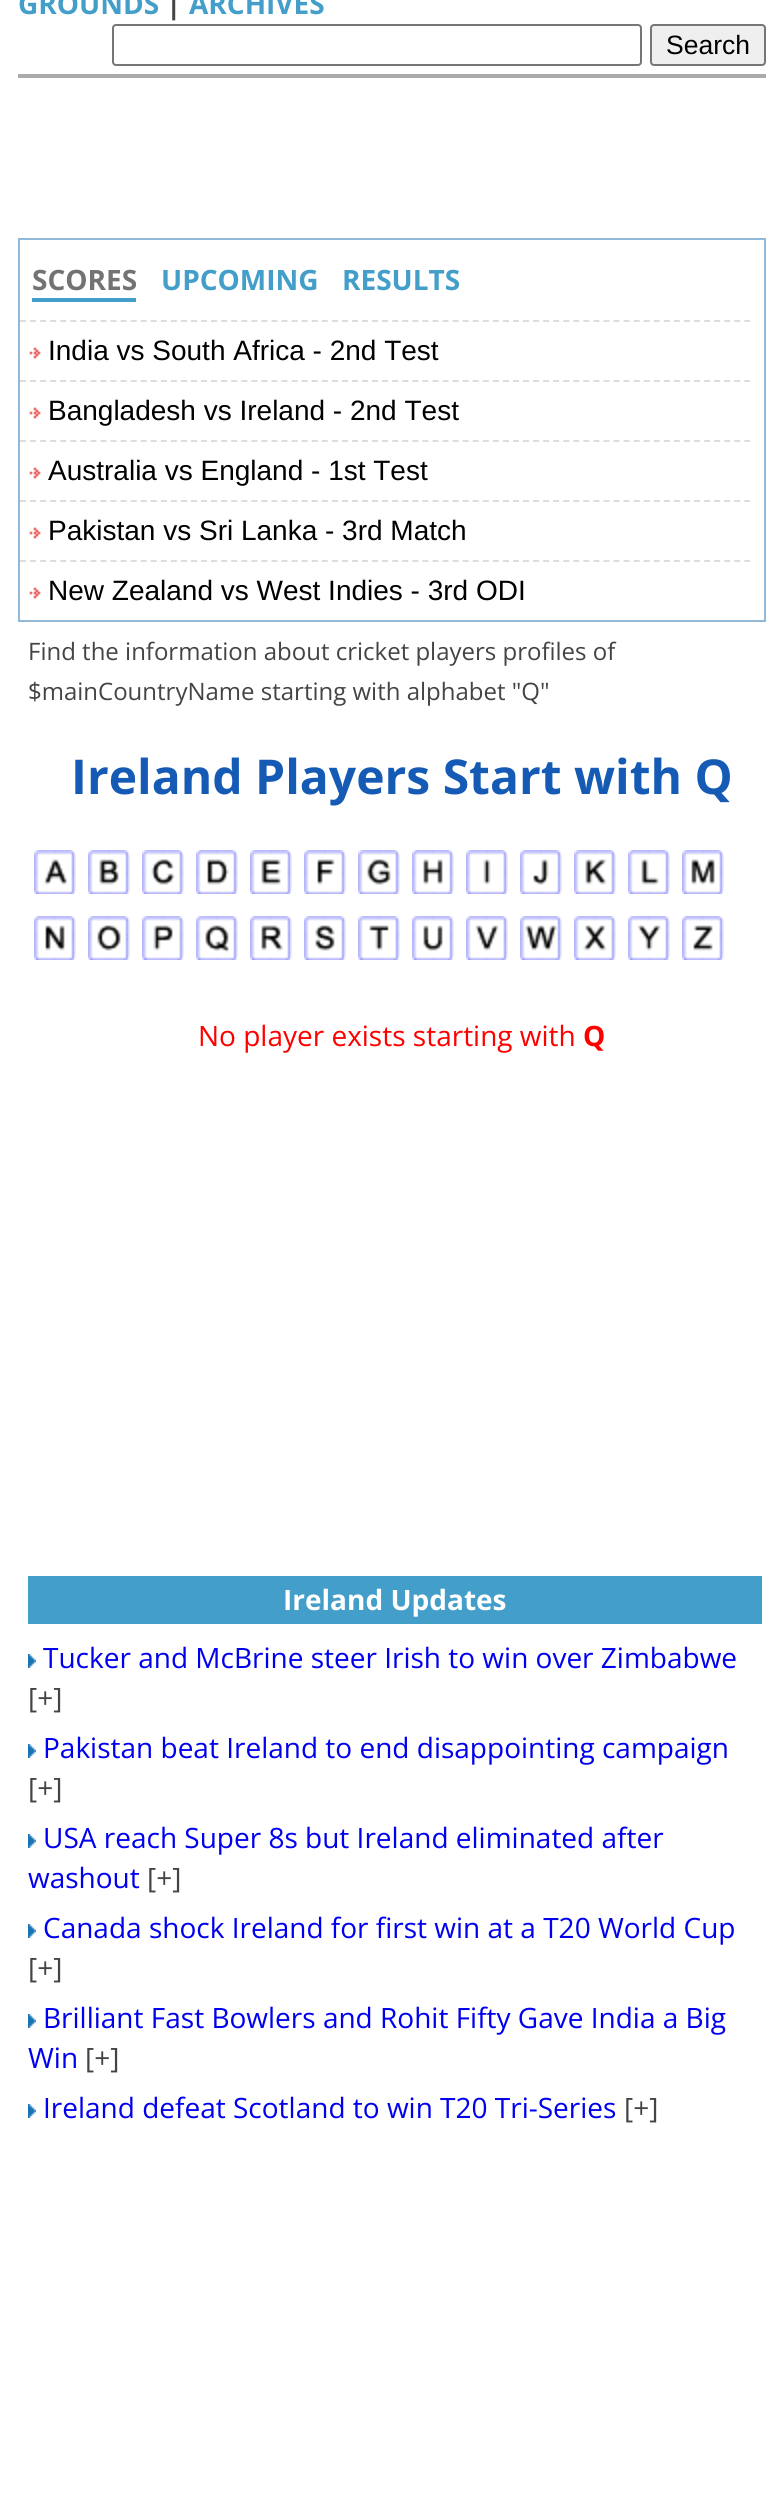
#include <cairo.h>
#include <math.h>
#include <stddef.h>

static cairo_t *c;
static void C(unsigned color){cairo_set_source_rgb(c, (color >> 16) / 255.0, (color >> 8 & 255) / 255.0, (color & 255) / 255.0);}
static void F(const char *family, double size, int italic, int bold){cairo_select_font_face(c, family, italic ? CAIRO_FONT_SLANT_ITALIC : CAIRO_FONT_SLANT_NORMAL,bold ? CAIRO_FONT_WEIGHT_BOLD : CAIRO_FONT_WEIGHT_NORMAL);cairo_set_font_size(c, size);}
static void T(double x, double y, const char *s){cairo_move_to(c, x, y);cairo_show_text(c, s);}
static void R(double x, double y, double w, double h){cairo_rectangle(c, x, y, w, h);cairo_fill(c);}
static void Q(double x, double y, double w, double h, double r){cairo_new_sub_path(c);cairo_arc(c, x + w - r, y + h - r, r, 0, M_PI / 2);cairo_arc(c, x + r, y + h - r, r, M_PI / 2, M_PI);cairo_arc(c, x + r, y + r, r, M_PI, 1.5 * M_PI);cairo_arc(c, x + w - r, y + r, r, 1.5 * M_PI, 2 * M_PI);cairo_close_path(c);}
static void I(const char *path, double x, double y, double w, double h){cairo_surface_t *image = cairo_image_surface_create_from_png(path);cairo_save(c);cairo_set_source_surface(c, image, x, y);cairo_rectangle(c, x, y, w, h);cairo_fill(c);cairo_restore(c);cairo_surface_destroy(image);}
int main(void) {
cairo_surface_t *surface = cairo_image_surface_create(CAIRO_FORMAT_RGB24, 784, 2497);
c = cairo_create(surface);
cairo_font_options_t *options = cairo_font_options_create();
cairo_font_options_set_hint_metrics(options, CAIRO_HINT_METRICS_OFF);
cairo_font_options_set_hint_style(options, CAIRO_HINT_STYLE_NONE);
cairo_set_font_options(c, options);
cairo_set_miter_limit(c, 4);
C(0xffffff);
cairo_paint(c);
C(0xaaaaaa);
R(18,74,748,4);
F("Open Sans",28,0,1);
C(0x439ec9);
T(18,14,"GROUNDS");
C(0x444444);
T(166,14,"|");
C(0x439ec9);
T(189,14,"ARCHIVES");
Q(113,25,528,40,3);
C(0x767676);
cairo_stroke(c);
C(0xefefef);
Q(651,25,114,40,3);
cairo_fill_preserve(c);
C(0x767676);
cairo_stroke(c);
F("Liberation Sans",26.5,0,0);
C(0x000000);
T(666,54,"Search");
cairo_rectangle(c,19,239,746,382);
C(0x93b9d9);
cairo_stroke(c);
F("Open Sans",28,0,1);
C(0x737373);
T(32,290,"SCORES");
C(0x439ec9);
R(32,298,104,4);
T(161,290,"UPCOMING");
T(342,290,"RESULTS");
cairo_new_path(c);
cairo_move_to(c,20,321);
cairo_line_to(c,750,321);
C(0xdddddd);
cairo_set_dash(c,(double[]){6,4.06},2,0);
cairo_stroke(c);
I("1.png",29,347,12,12);
F("Liberation Sans",28,0,0);
C(0x000000);
T(48,360,"India vs South Africa - 2nd Test");
cairo_new_path(c);
cairo_move_to(c,20,381);
cairo_line_to(c,750,381);
C(0xdddddd);
cairo_stroke(c);
I("1.png",29,407,12,12);
C(0x000000);
T(48,420,"Bangladesh vs Ireland - 2nd Test");
cairo_new_path(c);
cairo_move_to(c,20,441);
cairo_line_to(c,750,441);
C(0xdddddd);
cairo_stroke(c);
I("1.png",29,467,12,12);
C(0x000000);
T(48,480,"Australia vs England - 1st Test");
cairo_new_path(c);
cairo_move_to(c,20,501);
cairo_line_to(c,750,501);
C(0xdddddd);
cairo_stroke(c);
I("1.png",29,527,12,12);
C(0x000000);
T(48,540,"Pakistan vs Sri Lanka - 3rd Match");
cairo_new_path(c);
cairo_move_to(c,20,561);
cairo_line_to(c,750,561);
C(0xdddddd);
cairo_stroke(c);
I("1.png",29,587,12,12);
C(0x000000);
T(48,600,"New Zealand vs West Indies - 3rd ODI");
F("Open Sans",24,0,0);
C(0x444444);
T(28,660,"Find the information about cricket players profiles of");
T(28,700,"$mainCountryName starting with alphabet \"Q\"");
F("Open Sans",48,0,1);
C(0x155bb5);
T(71,794,"Ireland Players Start with Q");
I("2.png",34,850,42,44);
I("3.png",88,850,42,44);
I("4.png",142,850,42,44);
I("5.png",196,850,42,44);
I("6.png",250,850,42,44);
I("7.png",304,850,42,44);
I("8.png",358,850,42,44);
I("9.png",412,850,42,44);
I("10.png",466,850,42,44);
I("11.png",520,850,42,44);
I("12.png",574,850,42,44);
I("13.png",628,850,42,44);
I("14.png",682,850,42,44);
I("15.png",34,916,42,44);
I("16.png",88,916,42,44);
I("17.png",142,916,42,44);
I("18.png",196,916,42,44);
I("19.png",250,916,42,44);
I("20.png",304,916,42,44);
I("21.png",358,916,42,44);
I("22.png",412,916,42,44);
I("23.png",466,916,42,44);
I("24.png",520,916,42,44);
I("25.png",574,916,42,44);
I("26.png",628,916,42,44);
I("27.png",682,916,42,44);
F("Open Sans",28,0,0);
C(0xff0000);
T(198,1046,"No player exists starting with");
F("Open Sans",28,0,1);
T(583,1046,"Q");
C(0x439ec9);
R(28,1576,734,48);
C(0xffffff);
T(283,1610,"Ireland Updates");
I("28.png",28,1654,8,14);
F("Open Sans",28,0,0);
C(0x0000ee);
T(43,1668,"Tucker and McBrine steer Irish to win over Zimbabwe");
C(0x444444);
T(28,1708,"[+]");
I("28.png",28,1744,8,14);
C(0x0000ee);
T(43,1758,"Pakistan beat Ireland to end disappointing campaign");
C(0x444444);
T(28,1798,"[+]");
I("28.png",28,1834,8,14);
C(0x0000ee);
T(43,1848,"USA reach Super 8s but Ireland eliminated after");
T(28,1888,"washout");
C(0x444444);
T(147,1888,"[+]");
I("28.png",28,1924,8,14);
C(0x0000ee);
T(43,1938,"Canada shock Ireland for first win at a T20 World Cup");
C(0x444444);
T(28,1978,"[+]");
I("28.png",28,2014,8,14);
C(0x0000ee);
T(43,2028,"Brilliant Fast Bowlers and Rohit Fifty Gave India a Big");
T(28,2068,"Win");
C(0x444444);
T(85,2068,"[+]");
I("28.png",28,2104,8,14);
C(0x0000ee);
T(43,2118,"Ireland defeat Scotland to win T20 Tri-Series");
C(0x444444);
T(624,2118,"[+]");
cairo_surface_write_to_png(surface, "o.png");
cairo_font_options_destroy(options);
cairo_destroy(c);
cairo_surface_destroy(surface);
return 0;
}
